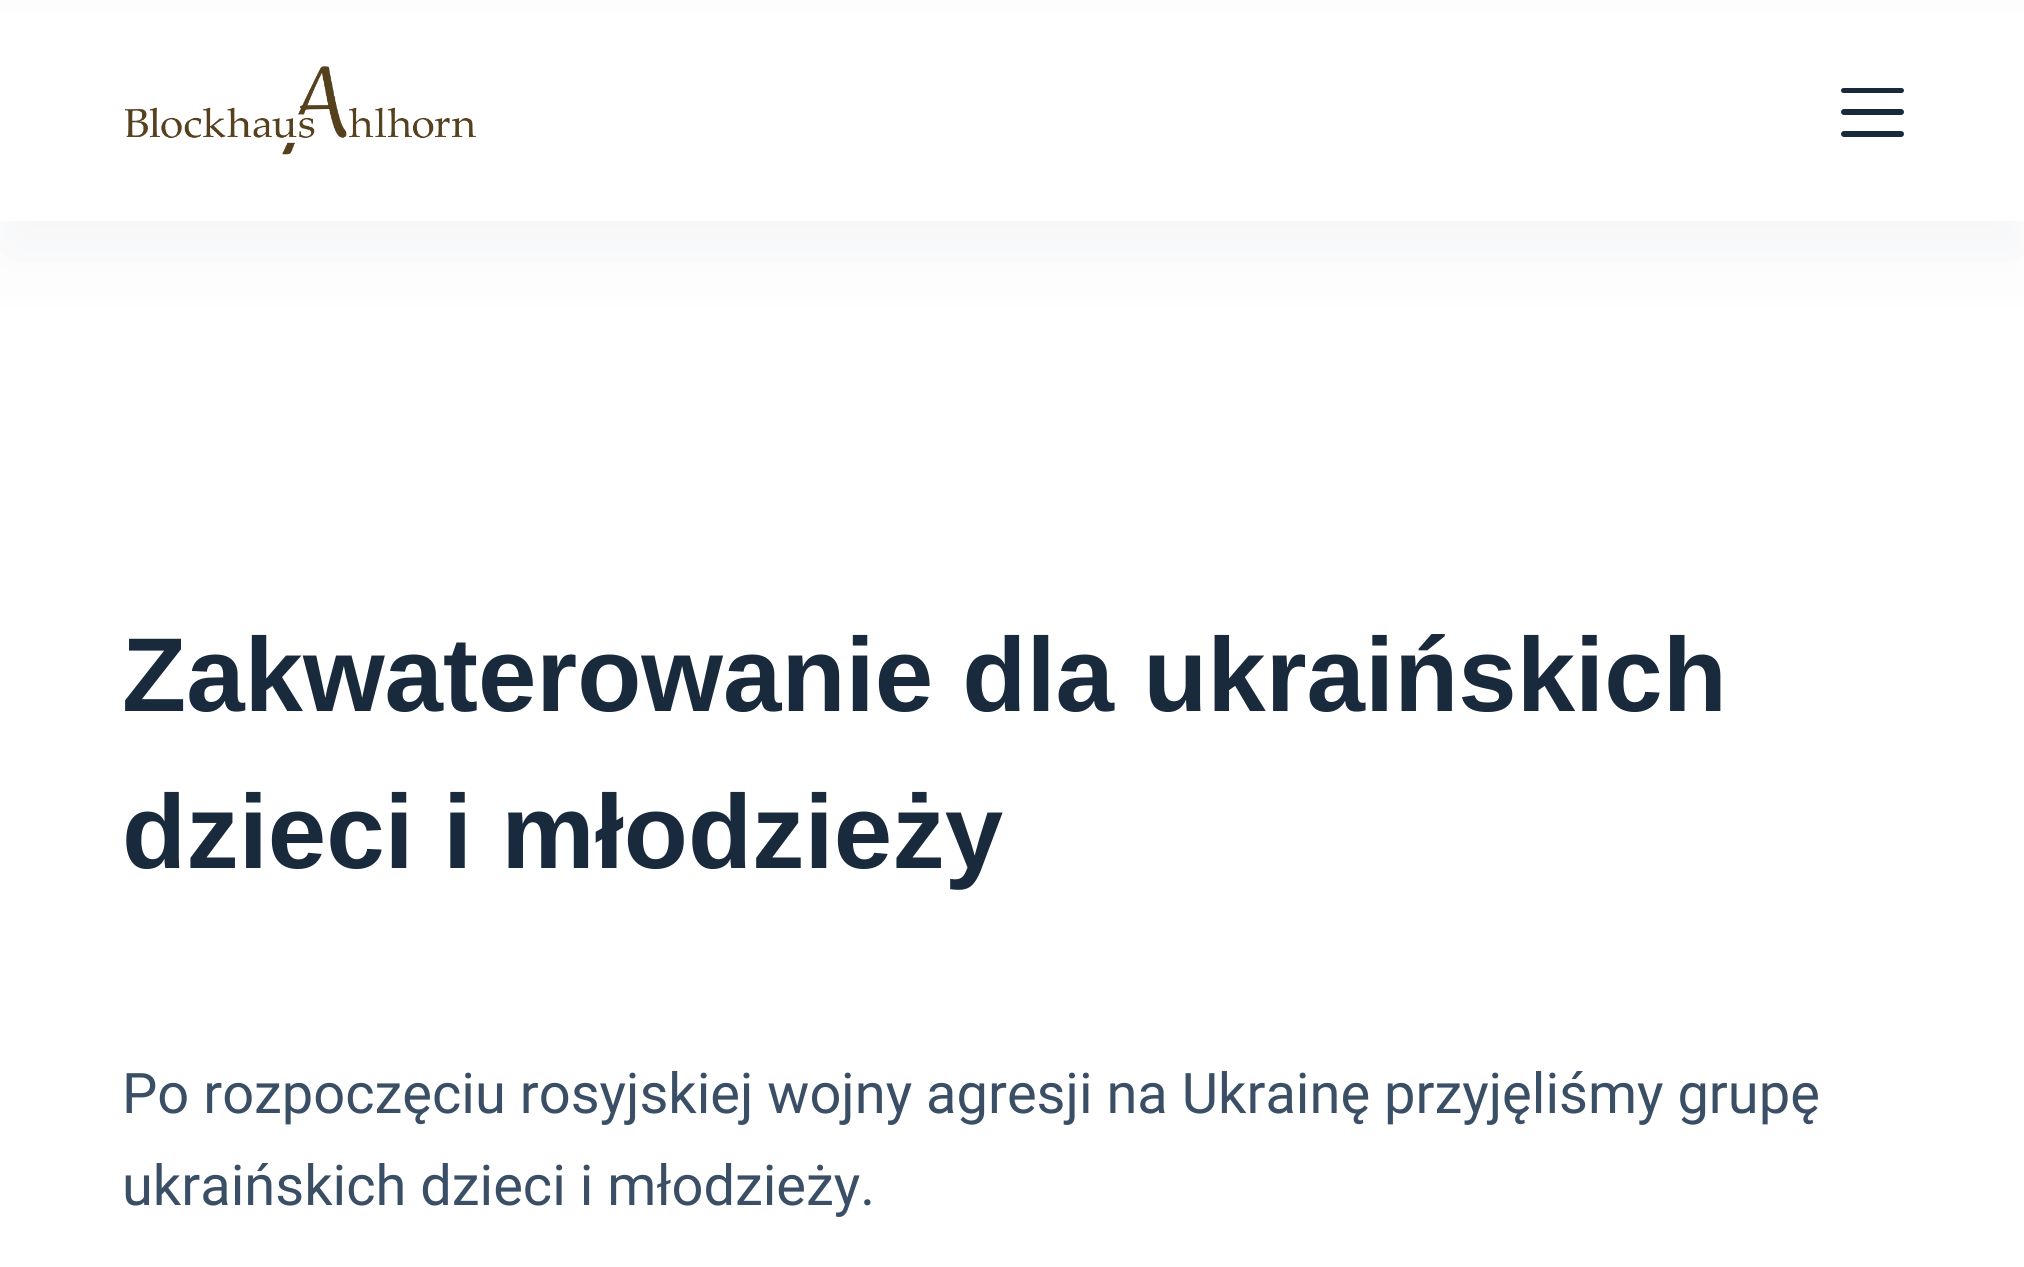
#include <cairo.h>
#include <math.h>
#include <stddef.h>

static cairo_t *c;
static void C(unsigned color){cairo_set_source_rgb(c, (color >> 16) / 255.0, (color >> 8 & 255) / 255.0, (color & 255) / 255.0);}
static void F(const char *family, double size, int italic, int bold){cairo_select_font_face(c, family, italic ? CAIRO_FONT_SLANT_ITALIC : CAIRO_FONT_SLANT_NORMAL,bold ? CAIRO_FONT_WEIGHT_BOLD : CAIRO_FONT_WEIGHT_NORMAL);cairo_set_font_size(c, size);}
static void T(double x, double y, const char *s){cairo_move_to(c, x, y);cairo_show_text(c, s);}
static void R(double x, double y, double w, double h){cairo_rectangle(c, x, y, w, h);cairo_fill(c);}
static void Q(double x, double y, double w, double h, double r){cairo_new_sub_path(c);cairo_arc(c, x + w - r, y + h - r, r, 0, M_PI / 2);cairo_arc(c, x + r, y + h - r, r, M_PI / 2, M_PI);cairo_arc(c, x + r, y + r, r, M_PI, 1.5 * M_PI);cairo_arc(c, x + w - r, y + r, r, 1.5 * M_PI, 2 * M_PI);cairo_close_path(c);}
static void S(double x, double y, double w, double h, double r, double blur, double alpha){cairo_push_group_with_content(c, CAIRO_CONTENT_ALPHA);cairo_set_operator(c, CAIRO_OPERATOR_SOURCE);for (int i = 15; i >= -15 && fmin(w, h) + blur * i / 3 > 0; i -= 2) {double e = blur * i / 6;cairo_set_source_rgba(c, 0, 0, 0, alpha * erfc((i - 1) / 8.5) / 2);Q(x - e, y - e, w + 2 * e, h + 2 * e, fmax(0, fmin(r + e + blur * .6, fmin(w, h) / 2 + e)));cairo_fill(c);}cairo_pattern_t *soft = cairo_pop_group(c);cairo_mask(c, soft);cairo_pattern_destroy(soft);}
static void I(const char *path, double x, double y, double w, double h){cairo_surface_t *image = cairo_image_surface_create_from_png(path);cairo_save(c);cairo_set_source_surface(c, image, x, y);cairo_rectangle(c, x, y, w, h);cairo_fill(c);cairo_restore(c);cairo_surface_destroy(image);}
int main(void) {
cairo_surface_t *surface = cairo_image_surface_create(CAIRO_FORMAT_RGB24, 2024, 1267);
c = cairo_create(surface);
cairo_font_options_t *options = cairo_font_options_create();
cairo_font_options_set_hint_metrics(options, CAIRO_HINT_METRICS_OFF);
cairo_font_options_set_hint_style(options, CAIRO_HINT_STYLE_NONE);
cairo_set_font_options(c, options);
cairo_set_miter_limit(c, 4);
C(0xffffff);
cairo_paint(c);
C(0x2c3e50);
S(0,35,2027,221,0,35,.05);
C(0xffffff);
R(0,11,2024,210);
I("1.png",125,66,351,89);
C(0x192a3d);
Q(1841,88,63,5,2.5);
cairo_fill(c);
Q(1841,109,63,6,3);
cairo_fill(c);
Q(1841,131,63,6,3);
cairo_fill(c);
F("Liberation Sans",105,0,1);
T(122,711,"Zakwaterowanie dla ukraińskich");
T(122,868,"dzieci i młodzieży");
F("Roboto",56,0,0);
C(0x3a4f66);
T(122,1113,"Po rozpoczęciu rosyjskiej wojny agresji na Ukrainę przyjęliśmy grupę");
T(122,1205,"ukraińskich dzieci i młodzieży.");
cairo_surface_write_to_png(surface, "o.png");
cairo_font_options_destroy(options);
cairo_destroy(c);
cairo_surface_destroy(surface);
return 0;
}
